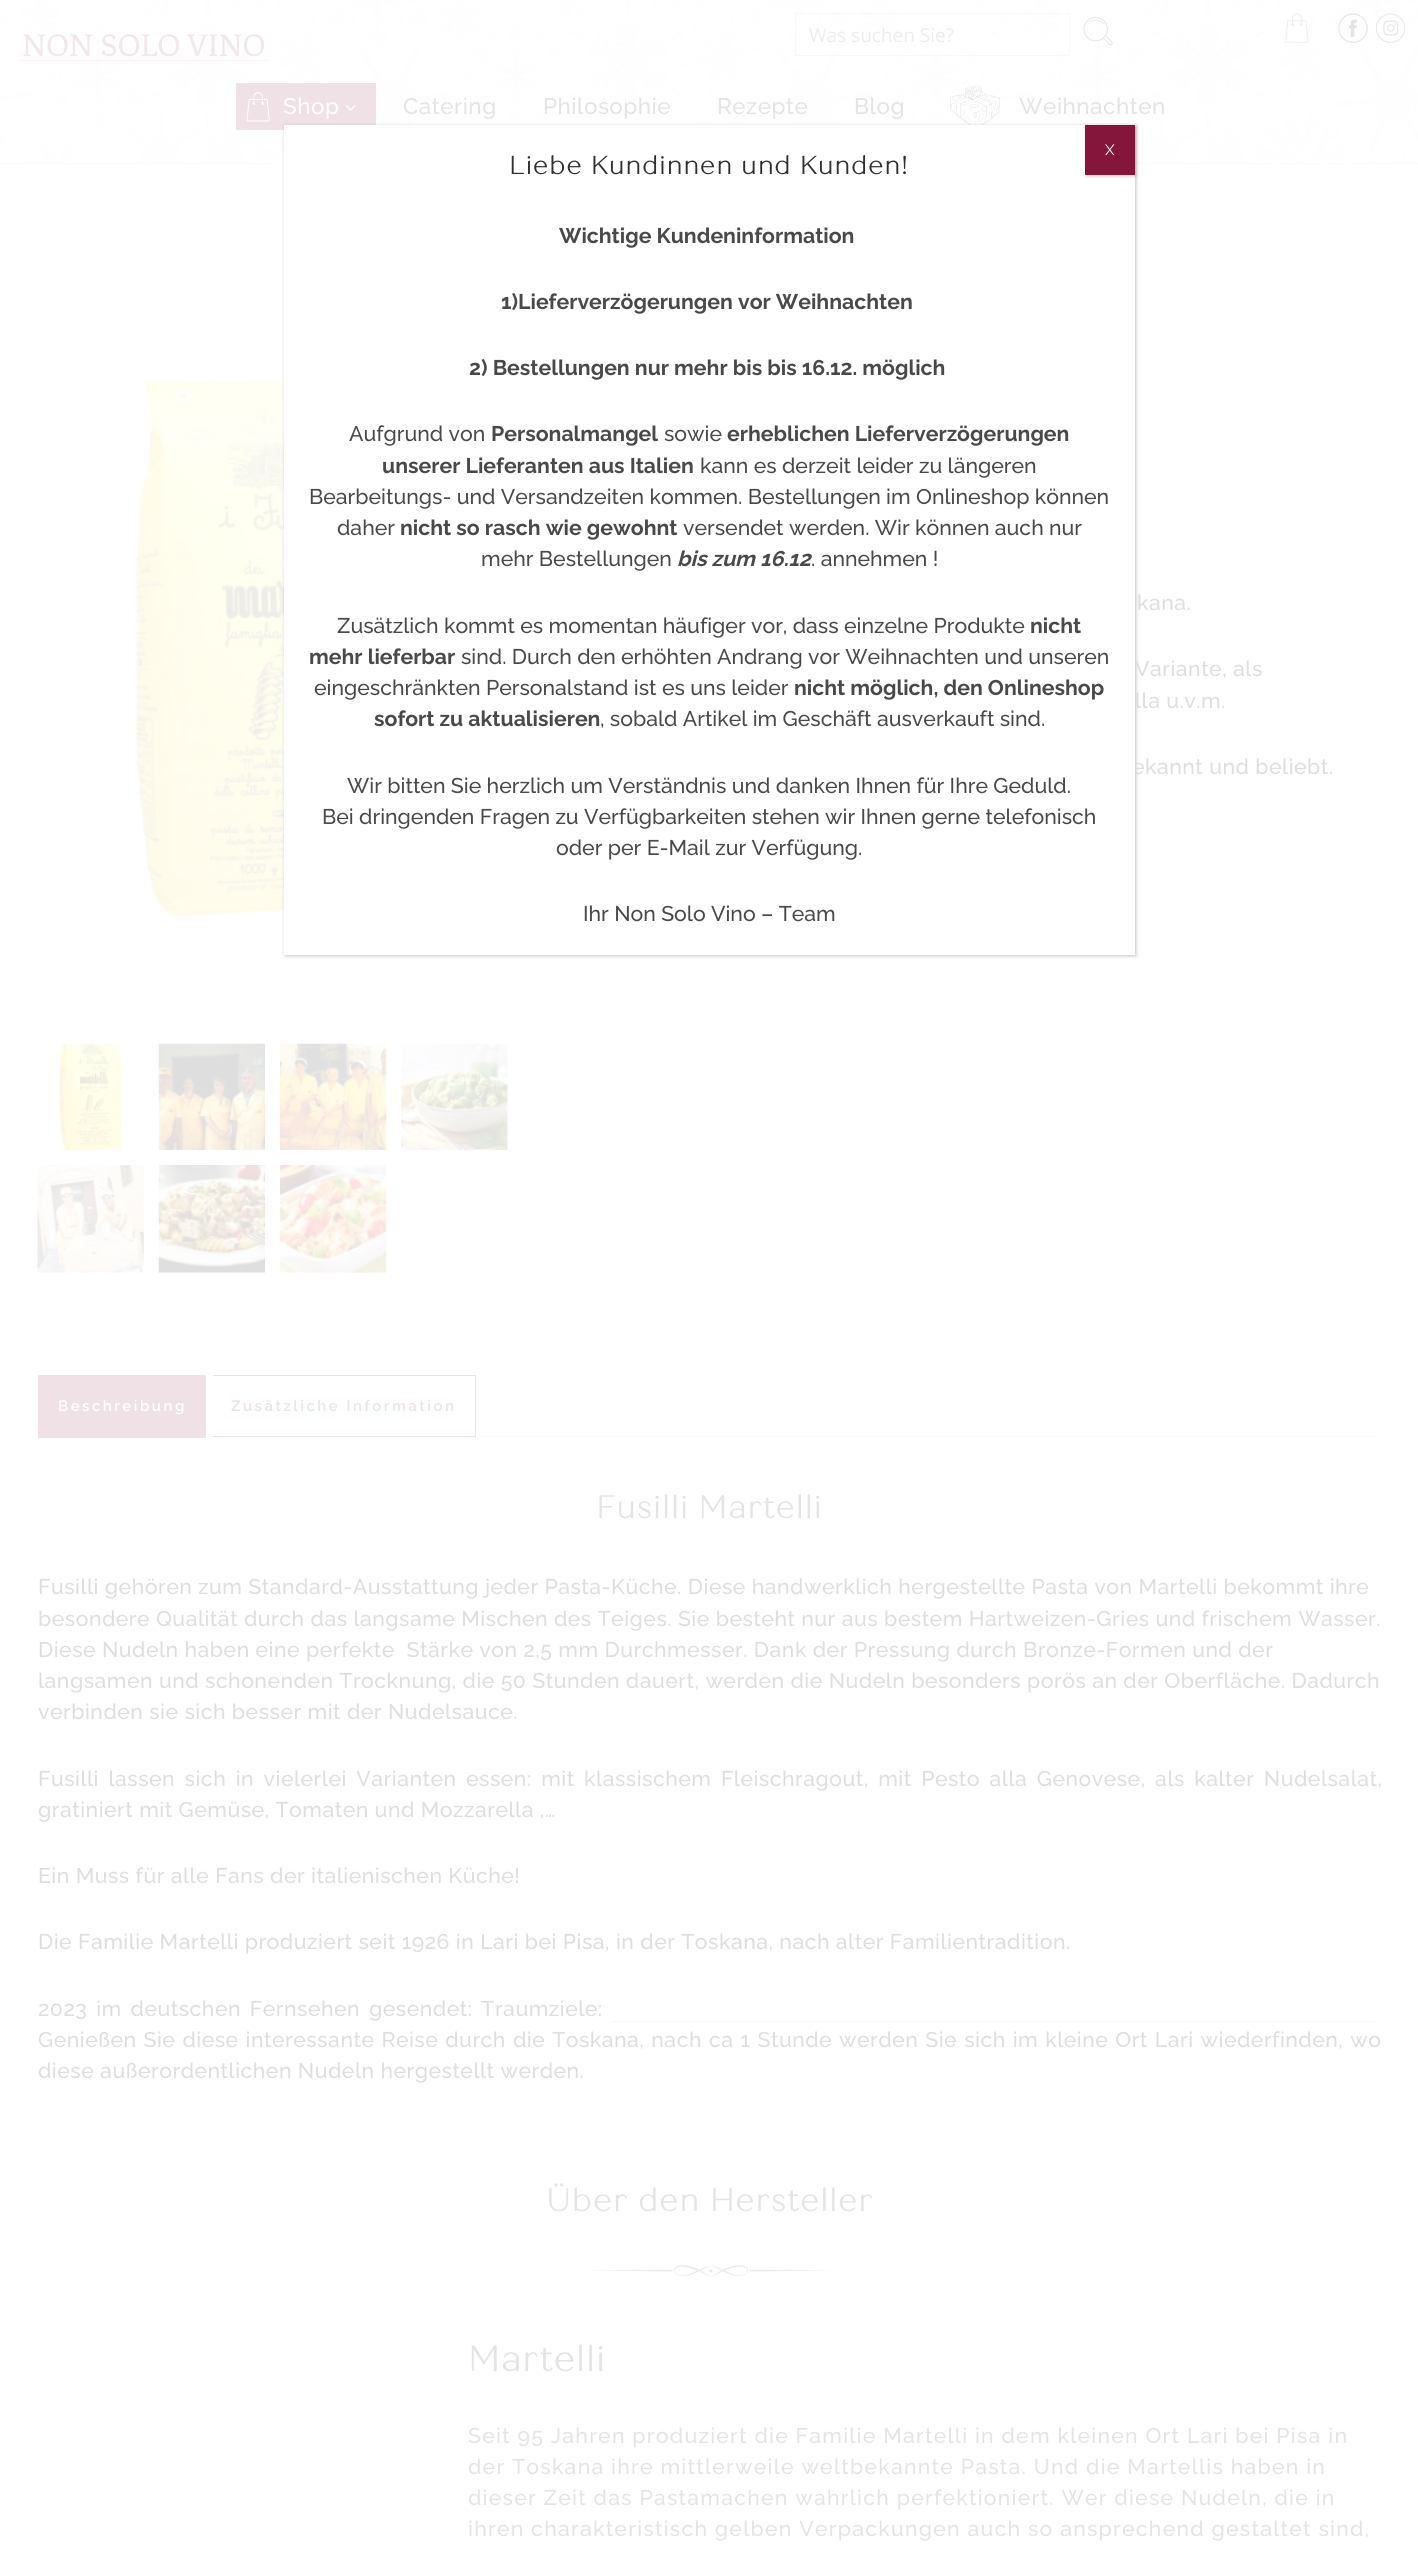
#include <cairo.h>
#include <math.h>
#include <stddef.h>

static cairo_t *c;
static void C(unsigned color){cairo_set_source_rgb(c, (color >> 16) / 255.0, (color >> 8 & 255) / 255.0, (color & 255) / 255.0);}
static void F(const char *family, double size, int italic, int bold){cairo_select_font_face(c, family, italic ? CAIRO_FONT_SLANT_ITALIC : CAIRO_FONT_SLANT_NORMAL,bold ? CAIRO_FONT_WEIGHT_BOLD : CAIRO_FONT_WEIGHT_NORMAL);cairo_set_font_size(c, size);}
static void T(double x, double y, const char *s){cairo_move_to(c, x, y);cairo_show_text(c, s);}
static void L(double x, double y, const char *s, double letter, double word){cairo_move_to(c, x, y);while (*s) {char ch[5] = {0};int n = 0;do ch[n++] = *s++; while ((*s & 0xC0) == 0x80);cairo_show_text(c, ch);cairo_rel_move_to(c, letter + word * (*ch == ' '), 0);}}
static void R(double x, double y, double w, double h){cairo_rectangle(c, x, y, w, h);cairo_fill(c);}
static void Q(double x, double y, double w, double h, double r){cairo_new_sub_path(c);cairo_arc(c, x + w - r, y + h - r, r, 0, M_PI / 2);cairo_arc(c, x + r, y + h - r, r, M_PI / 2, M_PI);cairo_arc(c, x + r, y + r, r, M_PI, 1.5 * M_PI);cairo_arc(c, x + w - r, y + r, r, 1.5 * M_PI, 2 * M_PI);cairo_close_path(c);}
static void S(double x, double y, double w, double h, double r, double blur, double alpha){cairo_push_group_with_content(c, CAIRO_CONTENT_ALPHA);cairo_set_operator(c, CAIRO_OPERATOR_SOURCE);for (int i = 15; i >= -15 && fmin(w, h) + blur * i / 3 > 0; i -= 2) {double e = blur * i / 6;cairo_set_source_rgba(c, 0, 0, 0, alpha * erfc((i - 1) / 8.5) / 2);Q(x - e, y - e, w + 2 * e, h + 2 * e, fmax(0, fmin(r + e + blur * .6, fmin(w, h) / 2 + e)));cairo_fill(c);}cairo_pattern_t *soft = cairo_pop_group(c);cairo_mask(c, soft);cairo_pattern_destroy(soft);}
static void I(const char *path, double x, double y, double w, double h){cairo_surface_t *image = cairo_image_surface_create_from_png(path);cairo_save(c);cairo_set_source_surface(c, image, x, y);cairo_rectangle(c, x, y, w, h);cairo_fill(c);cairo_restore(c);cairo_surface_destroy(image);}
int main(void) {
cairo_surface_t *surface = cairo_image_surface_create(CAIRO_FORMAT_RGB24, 1418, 2551);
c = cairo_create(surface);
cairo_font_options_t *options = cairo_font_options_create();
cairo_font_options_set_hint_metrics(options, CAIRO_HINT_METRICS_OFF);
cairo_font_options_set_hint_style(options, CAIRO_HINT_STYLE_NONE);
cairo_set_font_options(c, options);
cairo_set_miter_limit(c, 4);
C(0xffffff);
cairo_paint(c);
I("1.png",0,0,1418,163);
C(0xfbfbfb);
R(0,163,1418,1);
cairo_rectangle(c,795.5,13.5,274,42);
C(0xf8f8f8);
cairo_set_line_width(c,1);
cairo_stroke(c);
F("Open Sans",19,0,0);
C(0xededed);
T(809,42,"Was suchen Sie?");
I("2.png",1083,17,30,29);
I("3.png",1285,13,24,30);
I("4.png",1338,13,30,30);
I("5.png",1375,13,31,30);
I("6.png",20,34,248,27);
C(0xefe1e6);
R(236,83,140,47);
I("7.png",246,92,24,30);
F("Raleway Thin",22.5,0,0);
C(0xffffff);
L(283,114,"Shop",.5,0);
I("8.png",345,105,11,6);
C(0xe4e4e4);
L(403,114,"Catering",.5,0);
L(543,114,"Philosophie",.5,0);
L(717,114,"Rezepte",.5,0);
L(854,114,"Blog",.5,0);
I("9.png",950,85,50,40);
L(1019,114,"Weihnachten",.5,0);
I("10.png",126,374,158,552);
C(0x020202);
S(285,126,851,830,0,2,.23);
F("Raleway Thin",21.25,0,0);
C(0xdedede);
L(1132,774,"ekannt und beliebt.",.5,0);
C(0xffffff);
R(284,125,851,830);
C(0x020202);
S(1086,126,50,50,0,2,.23);
C(0x84163b);
R(1085,125,50,50);
F("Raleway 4 Thin",15,0,0);
C(0xffffff);
T(1105,155,"X");
F("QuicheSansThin",25,0,1);
C(0x303033);
L(509,174,"Liebe Kundinnen und Kunden!",1.25,0);
F("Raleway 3 Thin",21.25,0,0);
C(0x494949);
T(559,243,"Wichtige Kundeninformation");
T(501,309,"1)Lieferverzögerungen vor Weihnachten");
T(469,375,"2) Bestellungen nur mehr bis bis 16.12. möglich");
F("Raleway Thin",21.25,0,0);
T(349,441,"Aufgrund von");
F("Raleway 3 Thin",21.25,0,0);
T(491,441,"Personalmangel");
F("Raleway Thin",21.25,0,0);
T(664,441,"sowie");
F("Raleway 3 Thin",21.25,0,0);
T(727,441,"erheblichen Lieferverzögerungen");
T(382,473,"unserer Lieferanten aus Italien");
F("Raleway Thin",21.25,0,0);
T(700,473,"kann es derzeit leider zu längeren");
T(309,504,"Bearbeitungs- und Versandzeiten kommen. Bestellungen im Onlineshop können");
T(337,535,"daher");
F("Raleway 3 Thin",21.25,0,0);
T(400,535,"nicht so rasch wie gewohnt");
F("Raleway Thin",21.25,0,0);
T(683,535,"versendet werden. Wir können auch nur");
T(481,566,"mehr Bestellungen");
F("Raleway Thin",21.25,1,0);
T(677,566,"bis zum 16.12");
F("Raleway Thin",21.25,0,0);
T(811,566,". annehmen !");
T(337,633,"Zusätzlich kommt es momentan häufiger vor, dass einzelne Produkte");
F("Raleway 3 Thin",21.25,0,0);
T(1030,633,"nicht");
T(309,664,"mehr lieferbar");
F("Raleway Thin",21.25,0,0);
T(461,664,"sind. Durch den erhöhten Andrang vor Weihnachten und unseren");
T(314,695,"eingeschränkten Personalstand ist es uns leider");
F("Raleway 3 Thin",21.25,0,0);
T(794,695,"nicht möglich, den Onlineshop");
T(374,726,"sofort zu aktualisieren");
F("Raleway Thin",21.25,0,0);
T(600,726,", sobald Artikel im Geschäft ausverkauft sind.");
T(347,793,"Wir bitten Sie herzlich um Verständnis und danken Ihnen für Ihre Geduld.");
T(322,824,"Bei dringenden Fragen zu Verfügbarkeiten stehen wir Ihnen gerne telefonisch");
T(556,855,"oder per E-Mail zur Verfügung.");
T(583,921,"Ihr Non Solo Vino – Team");
I("11.png",54,1043,71,107);
I("12.png",158,1043,107,107);
I("13.png",280,1043,107,107);
I("14.png",401,1043,107,107);
I("15.png",37,1165,107,108);
I("16.png",158,1165,107,108);
I("17.png",280,1165,107,108);
C(0xdedede);
L(1137,610,"kana.",.5,0);
L(1135,676,"Variante, als",.5,0);
L(1135,708,"lla u.v.m.",.5,0);
C(0xefe1e6);
R(38,1375,168,63);
F("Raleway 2 Thin",15,0,0);
C(0xffffff);
L(58,1411,"Beschreibung",2.5,0);
C(0xfbfbfb);
R(206,1436,1175,1);
C(0xffffff);
R(213,1436,262,1);
C(0xefe1e6);
R(213,1375,263,1);
R(475,1375,1,63);
R(213,1436,263,1);
L(231,1411,"Zusätzliche Information",2.5,0);
F("QuicheSansThin",31.25,0,1);
C(0xe4e4e4);
L(596,1518,"Fusilli Martelli",1.25,0);
F("Raleway Thin",21.25,0,0);
C(0xdedede);
L(38,1594,"Fusilli gehören zum Standard-Ausstattung jeder Pasta-Küche. Diese handwerklich hergestellte Pasta von Martelli bekommt ihre",.5,0);
L(38,1626,"besondere Qualität durch das langsame Mischen des Teiges. Sie besteht nur aus bestem Hartweizen-Gries und frischem Wasser.",.5,0);
L(38,1657,"Diese Nudeln haben eine perfekte  Stärke von 2,5 mm Durchmesser. Dank der Pressung durch Bronze-Formen und der",.5,0);
L(38,1688,"langsamen und schonenden Trocknung, die 50 Stunden dauert, werden die Nudeln besonders porös an der Oberfläche. Dadurch",.5,0);
L(38,1719,"verbinden sie sich besser mit der Nudelsauce.",.5,0);
L(38,1786,"Fusilli lassen sich in vielerlei Varianten essen: mit klassischem Fleischragout, mit Pesto alla Genovese, als kalter Nudelsalat,",.5,3.6);
L(38,1817,"gratiniert mit Gemüse, Tomaten und Mozzarella ,…",.5,0);
L(38,1883,"Ein Muss für alle Fans der italienischen Küche!",.5,0);
L(38,1949,"Die Familie Martelli produziert seit 1926 in Lari bei Pisa, in der Toskana, nach alter Familientradition.",.5,0);
L(38,2016,"2023 im deutschen Fernsehen gesendet: Traumziele:",.5,3);
C(0xf8f8f8);
R(611,2021,764,1);
C(0xdedede);
L(38,2047,"Genießen Sie diese interessante Reise durch die Toskana, nach ca 1 Stunde werden Sie sich im kleine Ort Lari wiederfinden, wo",.5,1.1);
L(38,2078,"diese außerordentlichen Nudeln hergestellt werden.",.5,0);
F("QuicheSansThin",31.25,0,1);
C(0xe4e4e4);
L(546,2211,"Über den Hersteller",1.25,0);
I("18.png",588,2265,244,12);
F("QuicheSansThin",35,0,1);
L(468,2371,"Martelli",1.25,0);
F("Raleway Thin",21.25,0,0);
L(468,2443,"Seit 95 Jahren produziert die Familie Martelli in dem kleinen Ort Lari bei Pisa in",1.25,0);
L(468,2474,"der Toskana ihre mittlerweile weltbekannte Pasta. Und die Martellis haben in",1.25,0);
L(468,2505,"dieser Zeit das Pastamachen wahrlich perfektioniert. Wer diese Nudeln, die in",1.25,0);
L(468,2536,"ihren charakteristisch gelben Verpackungen auch so ansprechend gestaltet sind,",1.25,0);
cairo_surface_write_to_png(surface, "o.png");
cairo_font_options_destroy(options);
cairo_destroy(c);
cairo_surface_destroy(surface);
return 0;
}
